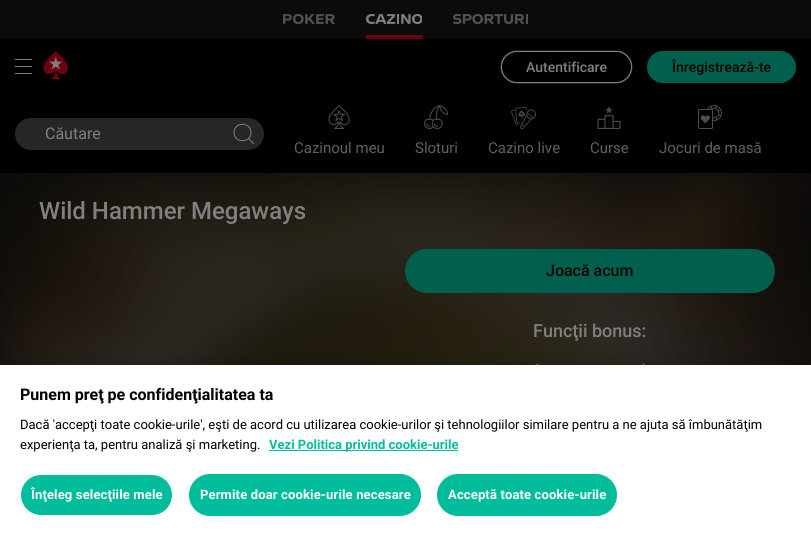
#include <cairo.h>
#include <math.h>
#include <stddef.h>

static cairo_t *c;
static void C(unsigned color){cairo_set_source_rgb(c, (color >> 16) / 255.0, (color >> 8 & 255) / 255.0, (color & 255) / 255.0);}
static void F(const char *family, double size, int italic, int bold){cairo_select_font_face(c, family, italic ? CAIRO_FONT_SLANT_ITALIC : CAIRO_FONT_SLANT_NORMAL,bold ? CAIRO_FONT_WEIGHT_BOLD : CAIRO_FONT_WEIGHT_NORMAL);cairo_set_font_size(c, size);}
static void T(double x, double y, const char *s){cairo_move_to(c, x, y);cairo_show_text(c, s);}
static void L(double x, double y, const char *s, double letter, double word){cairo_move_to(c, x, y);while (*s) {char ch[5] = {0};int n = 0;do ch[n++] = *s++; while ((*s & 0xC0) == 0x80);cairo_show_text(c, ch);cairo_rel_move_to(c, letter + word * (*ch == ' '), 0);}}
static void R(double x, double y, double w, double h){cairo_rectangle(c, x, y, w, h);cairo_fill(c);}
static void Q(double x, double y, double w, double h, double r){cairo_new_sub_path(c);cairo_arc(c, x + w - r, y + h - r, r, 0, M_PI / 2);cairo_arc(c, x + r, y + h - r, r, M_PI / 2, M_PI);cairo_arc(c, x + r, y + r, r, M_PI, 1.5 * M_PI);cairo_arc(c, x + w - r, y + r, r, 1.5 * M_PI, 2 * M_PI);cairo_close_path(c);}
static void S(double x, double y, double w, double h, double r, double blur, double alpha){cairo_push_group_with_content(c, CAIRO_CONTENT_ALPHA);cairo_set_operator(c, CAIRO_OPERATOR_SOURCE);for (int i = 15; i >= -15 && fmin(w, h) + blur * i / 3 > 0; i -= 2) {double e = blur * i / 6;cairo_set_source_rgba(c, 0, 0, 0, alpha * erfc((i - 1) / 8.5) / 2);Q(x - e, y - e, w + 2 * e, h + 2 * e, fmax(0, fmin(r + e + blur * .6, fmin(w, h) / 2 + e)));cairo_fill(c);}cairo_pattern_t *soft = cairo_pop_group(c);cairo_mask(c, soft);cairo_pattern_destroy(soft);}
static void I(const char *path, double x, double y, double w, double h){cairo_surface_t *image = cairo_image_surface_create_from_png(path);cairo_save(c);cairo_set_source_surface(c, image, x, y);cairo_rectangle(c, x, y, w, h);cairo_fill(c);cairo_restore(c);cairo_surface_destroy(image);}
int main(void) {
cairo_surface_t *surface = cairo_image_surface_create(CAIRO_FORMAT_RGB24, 811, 536);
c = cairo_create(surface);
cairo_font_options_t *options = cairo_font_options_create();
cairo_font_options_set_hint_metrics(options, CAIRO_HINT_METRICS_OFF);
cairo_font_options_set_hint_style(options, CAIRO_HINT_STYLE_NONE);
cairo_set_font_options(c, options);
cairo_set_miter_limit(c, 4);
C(0x000000);
cairo_paint(c);
C(0x0b0b0b);
R(0,0,811,39);
I("1.png",283,14,52,10);
C(0x6c0011);
R(366,35,57,4);
I("2.png",366,14,56,10);
I("3.png",453,14,75,10);
C(0x808080);
R(15,59,17,1);
R(15,66,17,1);
R(15,73,17,1);
I("4.png",43,51,25,28);
C(0x808080);
S(501,51,131,32,16,.5,1);
C(0x000000);
Q(501.5,51.5,130,31,15.5);
cairo_fill_preserve(c);
C(0x808080);
cairo_set_line_width(c,1);
cairo_stroke(c);
F("Roboto Medium",14,0,0);
T(526,72,"Autentificare");
C(0x015f4e);
Q(647,51,149,32,16);
cairo_fill(c);
C(0x000000);
T(672,72,"Înregistrează-te");
C(0x262626);
Q(15,118,249,32,16);
cairo_fill(c);
F("Roboto",16,0,0);
C(0x808080);
T(45,139,"Căutare");
cairo_new_path(c);
cairo_move_to(c,251,132.5);
cairo_curve_to(c,251,143.5,234,143.5,234,132.5);
cairo_curve_to(c,234,121.5,251,121.5,251,132.5);
cairo_close_path(c);
cairo_move_to(c,248.5,138.5);
cairo_line_to(c,254,144);
cairo_stroke(c);
I("5.png",328,105,22,24);
F("Roboto",15,0,0);
C(0x606060);
T(294,153,"Cazinoul meu");
I("6.png",424,105,24,24);
T(415,153,"Sloturi");
I("7.png",511,107,25,22);
T(488,153,"Cazino live");
I("8.png",597,106,24,23);
T(590,153,"Curse");
I("9.png",698,105,24,24);
T(659,153,"Jocuri de masă");
C(0x0b0b0b);
R(0,173,811,192);
I("10.png",0,173,811,192);
F("Roboto Medium",24,0,0);
C(0x808080);
T(39,219,"Wild Hammer Megaways");
C(0x015f4e);
Q(405,249,370,44,22);
cairo_fill(c);
F("Roboto Medium",16,0,0);
C(0x000000);
T(546,276,"Joacă acum");
F("Roboto Medium",18,0,0);
C(0x808080);
T(533,337,"Funcţii bonus:");
I("11.png",535,363,5,2);
I("12.png",642,363,3,2);
C(0x000000);
S(0,365,811,171,0,9,.2);
C(0xffffff);
R(0,365,811,171);
F("Roboto",16,0,1);
C(0x000000);
T(20,400,"Punem preţ pe confidenţialitatea ta");
F("Roboto",13,0,0);
T(20,429,"Dacă 'accepţi toate cookie-urile', eşti de acord cu utilizarea cookie-urilor şi tehnologiilor similare pentru a ne ajuta să îmbunătăţim");
T(20,449,"experienţa ta, pentru analiză şi marketing.");
C(0x02bd9c);
R(269,450,189,1);
F("Roboto",13,0,1);
T(269,449,"Vezi Politica privind cookie-urile");
Q(20.5,474.5,152,41,20.5);
cairo_fill_preserve(c);
C(0xffffff);
cairo_stroke(c);
L(31,499,"Înţeleg selecţiile mele",.15,0);
C(0x02bd9c);
Q(189.5,474.5,231,41,20.5);
cairo_fill_preserve(c);
cairo_stroke(c);
C(0xffffff);
L(200,499,"Permite doar cookie-urile necesare",.15,0);
C(0x02bd9c);
Q(437.5,474.5,179,41,20.5);
cairo_fill_preserve(c);
cairo_stroke(c);
C(0xffffff);
L(448,499,"Acceptă toate cookie-urile",.15,0);
cairo_surface_write_to_png(surface, "o.png");
cairo_font_options_destroy(options);
cairo_destroy(c);
cairo_surface_destroy(surface);
return 0;
}
